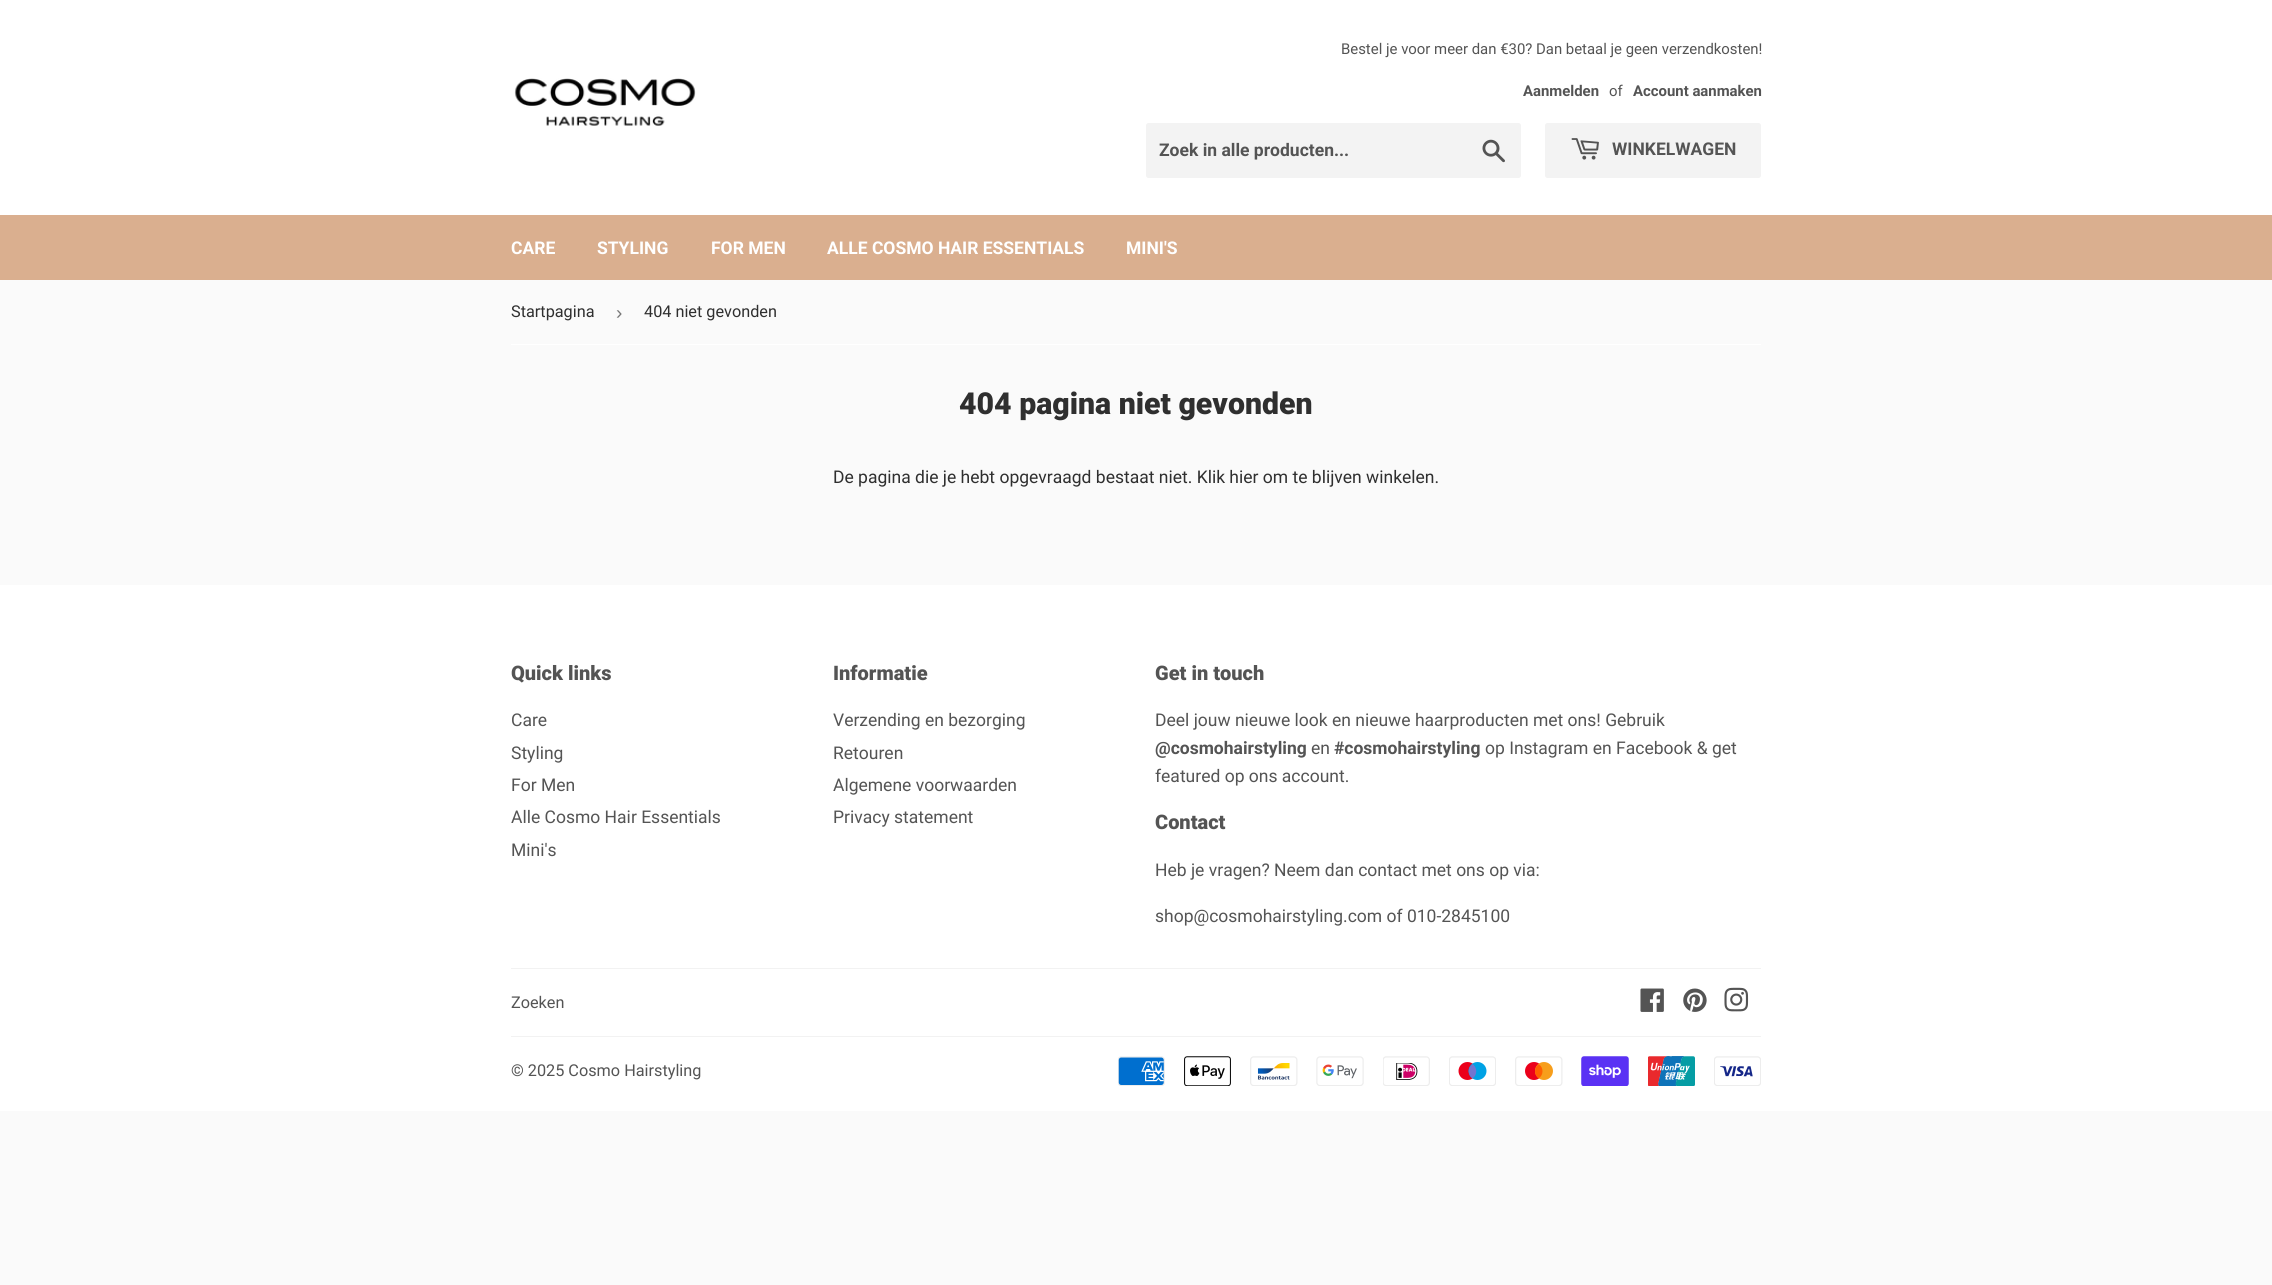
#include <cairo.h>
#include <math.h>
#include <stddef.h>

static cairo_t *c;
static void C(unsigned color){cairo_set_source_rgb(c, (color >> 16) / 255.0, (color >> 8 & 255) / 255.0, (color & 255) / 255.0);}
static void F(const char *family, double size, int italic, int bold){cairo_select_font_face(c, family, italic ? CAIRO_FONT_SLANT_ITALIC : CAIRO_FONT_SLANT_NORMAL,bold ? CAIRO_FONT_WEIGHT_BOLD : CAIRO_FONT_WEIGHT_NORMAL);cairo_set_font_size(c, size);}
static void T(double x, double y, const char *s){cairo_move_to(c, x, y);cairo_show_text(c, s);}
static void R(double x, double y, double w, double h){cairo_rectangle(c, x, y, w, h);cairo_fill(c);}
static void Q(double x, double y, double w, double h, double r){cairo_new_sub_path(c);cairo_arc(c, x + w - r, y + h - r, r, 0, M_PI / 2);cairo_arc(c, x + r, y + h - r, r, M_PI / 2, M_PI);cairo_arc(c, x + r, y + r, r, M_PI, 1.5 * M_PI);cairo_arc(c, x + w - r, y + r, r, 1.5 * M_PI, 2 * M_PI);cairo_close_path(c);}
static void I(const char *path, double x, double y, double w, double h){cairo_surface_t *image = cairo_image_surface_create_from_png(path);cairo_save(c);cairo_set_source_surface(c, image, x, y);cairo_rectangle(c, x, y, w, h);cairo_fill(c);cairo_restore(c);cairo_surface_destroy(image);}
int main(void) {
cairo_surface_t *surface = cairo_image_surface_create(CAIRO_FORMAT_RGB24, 2272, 1285);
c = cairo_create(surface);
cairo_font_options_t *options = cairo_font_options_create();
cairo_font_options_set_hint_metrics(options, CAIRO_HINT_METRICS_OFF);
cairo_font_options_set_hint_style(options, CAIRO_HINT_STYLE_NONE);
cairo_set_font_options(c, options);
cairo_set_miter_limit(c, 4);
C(0xfafafa);
cairo_paint(c);
C(0xffffff);
R(0,0,2272,215);
I("1.png",514,78,182,48);
F("Roboto",14.9,0,0);
C(0x545454);
T(1341,54,"Bestel je voor meer dan €30? Dan betaal je geen verzendkosten!");
F("Roboto",14.9,0,1);
T(1523,96,"Aanmelden");
F("Roboto",14.9,0,0);
T(1609,96,"of");
F("Roboto",14.9,0,1);
T(1633,96,"Account aanmaken");
C(0xf3f3f3);
Q(1146,123,375,55,2.5);
cairo_fill(c);
F("Roboto",17.5,0,1);
C(0x545454);
T(1159,156,"Zoek in alle producten...");
I("2.png",1482,139,23,24);
C(0xf3f3f3);
Q(1545,123,216,55,2.5);
cairo_fill(c);
I("3.png",1571,138,28,22);
C(0x545454);
T(1612,155,"WINKELWAGEN");
C(0xdaaf8f);
R(0,215,2272,65);
C(0xffffff);
T(511,254,"CARE");
T(597,254,"STYLING");
T(711,254,"FOR MEN");
T(827,254,"ALLE COSMO HAIR ESSENTIALS");
T(1126,254,"MINI'S");
R(511,344,1250,1);
F("Roboto",16.25,0,0);
C(0x2f2f2f);
T(511,317,"Startpagina");
F("Liberation Sans",19,0,0);
C(0x767676);
T(616,319,"›");
F("Roboto",16.25,0,0);
C(0x2f2f2f);
T(644,317,"404 niet gevonden");
F("Roboto Black",30.25,0,0);
T(959,414,"404 pagina niet gevonden");
F("Roboto",17.5,0,0);
T(833,483,"De pagina die je hebt opgevraagd bestaat niet. Klik hier om te blijven winkelen.");
C(0xffffff);
R(0,585,2272,526);
F("Roboto Black",20,0,0);
C(0x545454);
T(511,680,"Quick links");
F("Roboto",17.5,0,0);
T(511,726,"Care");
T(511,759,"Styling");
T(511,791,"For Men");
T(511,823,"Alle Cosmo Hair Essentials");
T(511,856,"Mini's");
F("Roboto Black",20,0,0);
T(833,680,"Informatie");
F("Roboto",17.5,0,0);
T(833,726,"Verzending en bezorging");
T(833,759,"Retouren");
T(833,791,"Algemene voorwaarden");
T(833,823,"Privacy statement");
F("Roboto Black",20,0,0);
T(1155,680,"Get in touch");
F("Roboto",17.5,0,0);
T(1155,726,"Deel jouw nieuwe look en nieuwe haarproducten met ons! Gebruik");
F("Roboto",17.5,0,1);
T(1155,754,"@cosmohairstyling");
F("Roboto",17.5,0,0);
T(1311,754,"en");
F("Roboto",17.5,0,1);
T(1334,754,"#cosmohairstyling");
F("Roboto",17.5,0,0);
T(1485,754,"op Instagram en Facebook & get");
T(1155,782,"featured op ons account.");
F("Roboto Black",20,0,0);
T(1155,829,"Contact");
F("Roboto",17.5,0,0);
T(1155,876,"Heb je vragen? Neem dan contact met ons op via:");
T(1155,922,"shop@cosmohairstyling.com of 010-2845100");
C(0xf2f2f2);
R(511,968,1250,1);
F("Roboto",16.25,0,0);
C(0x545454);
T(511,1008,"Zoeken");
I("4.png",1640,988,24,24);
I("5.png",1683,988,24,24);
I("6.png",1724,987,25,25);
C(0xf2f2f2);
R(511,1036,1250,1);
C(0x545454);
T(511,1076,"© 2025 Cosmo Hairstyling");
I("7.png",1118,1056,47,30);
I("8.png",1184,1056,47,30);
I("9.png",1250,1056,48,30);
I("10.png",1316,1056,48,30);
I("11.png",1383,1056,47,30);
I("12.png",1449,1056,47,30);
I("13.png",1515,1056,48,30);
I("14.png",1581,1056,48,30);
I("15.png",1648,1056,47,30);
I("16.png",1714,1056,47,30);
cairo_surface_write_to_png(surface, "o.png");
cairo_font_options_destroy(options);
cairo_destroy(c);
cairo_surface_destroy(surface);
return 0;
}
